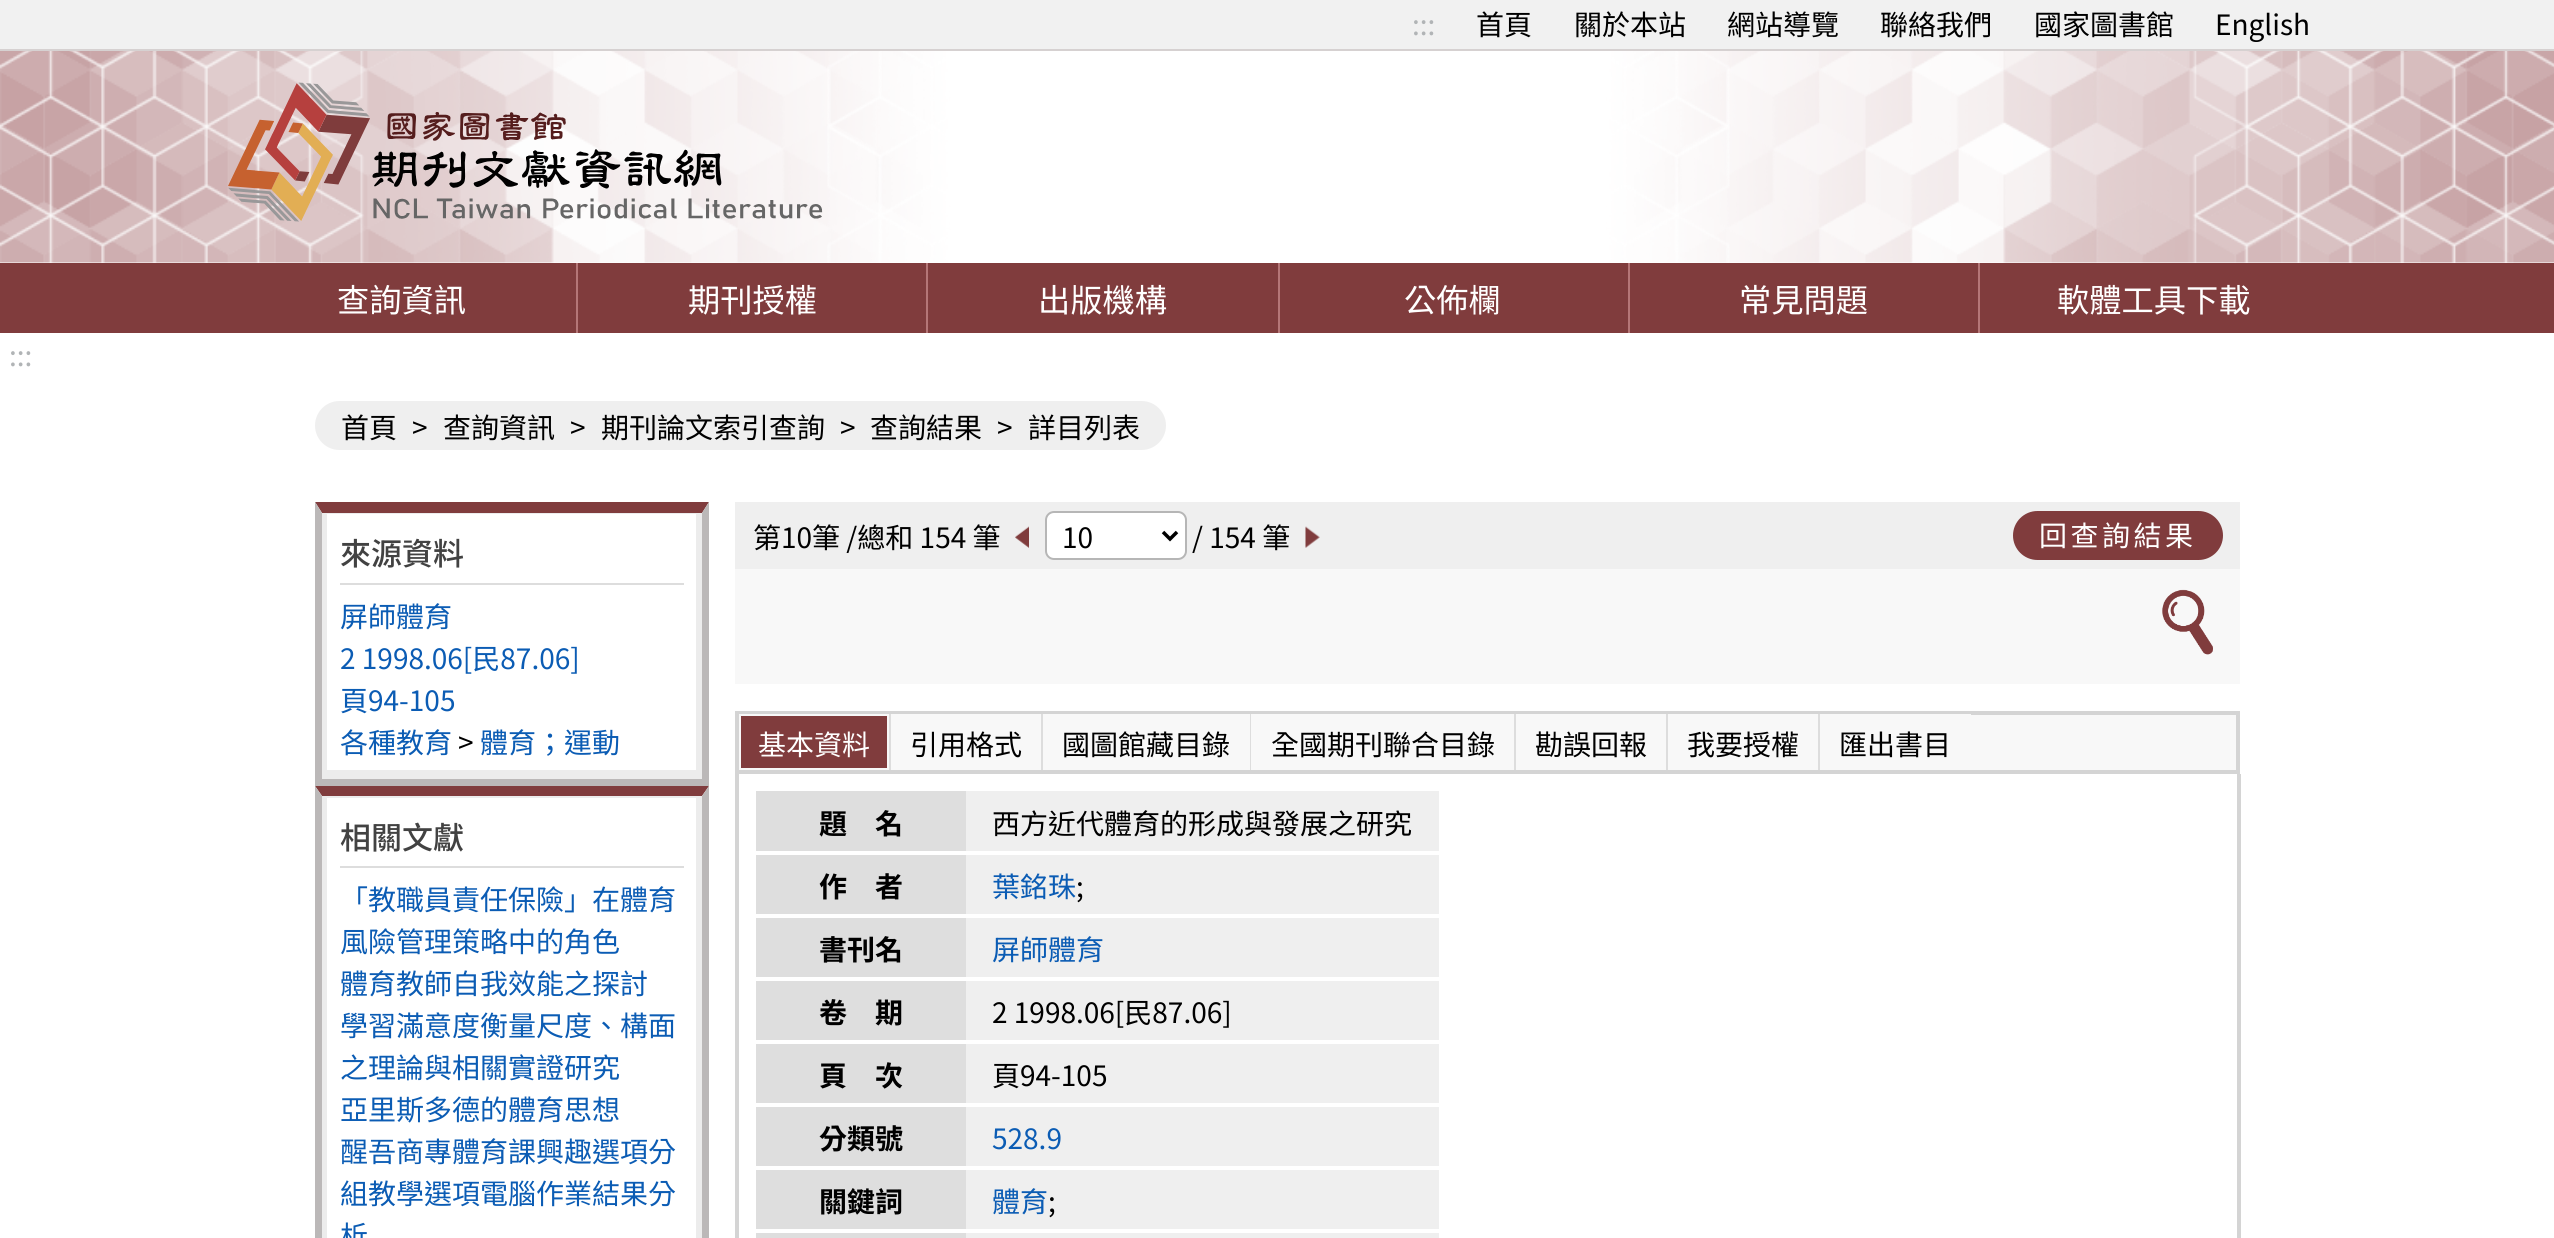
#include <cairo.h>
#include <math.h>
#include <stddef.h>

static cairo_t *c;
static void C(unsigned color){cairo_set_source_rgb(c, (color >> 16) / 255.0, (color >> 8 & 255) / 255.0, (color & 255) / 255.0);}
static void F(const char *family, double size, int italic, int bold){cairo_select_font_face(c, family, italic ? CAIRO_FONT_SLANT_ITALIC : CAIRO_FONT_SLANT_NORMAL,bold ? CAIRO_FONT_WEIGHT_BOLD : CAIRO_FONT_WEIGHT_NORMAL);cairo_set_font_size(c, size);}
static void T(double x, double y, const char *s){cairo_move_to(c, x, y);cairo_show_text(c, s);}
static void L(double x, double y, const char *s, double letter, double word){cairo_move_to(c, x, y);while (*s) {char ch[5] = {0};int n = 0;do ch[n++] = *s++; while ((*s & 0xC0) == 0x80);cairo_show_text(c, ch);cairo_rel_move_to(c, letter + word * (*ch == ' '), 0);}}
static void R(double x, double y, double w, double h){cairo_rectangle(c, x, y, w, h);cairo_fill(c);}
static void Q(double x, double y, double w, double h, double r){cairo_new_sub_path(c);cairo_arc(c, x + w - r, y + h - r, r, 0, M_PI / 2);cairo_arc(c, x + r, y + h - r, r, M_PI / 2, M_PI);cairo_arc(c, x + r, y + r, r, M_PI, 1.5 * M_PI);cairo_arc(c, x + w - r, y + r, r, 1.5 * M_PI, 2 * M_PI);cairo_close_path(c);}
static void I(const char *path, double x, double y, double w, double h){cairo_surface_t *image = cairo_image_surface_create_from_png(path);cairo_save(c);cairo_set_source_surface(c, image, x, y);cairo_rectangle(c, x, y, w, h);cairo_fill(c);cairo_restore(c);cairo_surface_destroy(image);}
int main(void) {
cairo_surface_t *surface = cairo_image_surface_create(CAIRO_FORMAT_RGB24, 2554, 1238);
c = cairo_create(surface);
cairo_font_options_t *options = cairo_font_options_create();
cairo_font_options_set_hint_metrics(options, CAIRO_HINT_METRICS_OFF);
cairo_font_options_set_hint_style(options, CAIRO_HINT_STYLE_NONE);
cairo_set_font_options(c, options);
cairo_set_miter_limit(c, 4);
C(0xffffff);
cairo_paint(c);
I("1.png",0,51,2554,212);
C(0xf1f1f1);
R(0,0,2554,49);
C(0xd6d1d1);
R(0,49,2554,2);
F("Noto Sans TC",28,0,0);
C(0xb1b4b6);
T(1412,35,":::");
C(0x000000);
T(1476,35,"首頁");
T(1574,35,"關於本站");
T(1727,35,"網站導覽");
T(1880,35,"聯絡我們");
T(2034,35,"國家圖書館");
T(2215,35,"English");
I("2.png",228,82,595,140);
C(0x803c3d);
R(0,263,2554,70);
F("Noto Sans TC",32.25,0,0);
C(0xffffff);
T(337,312,"查詢資訊");
C(0xb57677);
R(576,263,2,70);
C(0xffffff);
T(688,312,"期刊授權");
C(0xb57677);
R(926,263,2,70);
C(0xffffff);
T(1038,312,"出版機構");
C(0xb57677);
R(1278,263,2,70);
C(0xffffff);
T(1404,312,"公佈欄");
C(0xb57677);
R(1628,263,2,70);
C(0xffffff);
T(1739,312,"常見問題");
C(0xb57677);
R(1978,263,2,70);
C(0xffffff);
T(2057,312,"軟體工具下載");
F("Noto Sans TC",28,0,0);
C(0xb1b4b6);
T(9,366,":::");
C(0xefefef);
Q(315,401,851,49,24.5);
cairo_fill(c);
C(0x000000);
T(341,438,"首頁");
T(412,438,">");
T(443,438,"查詢資訊");
T(570,438,">");
T(601,438,"期刊論文索引查詢");
T(840,438,">");
T(870,438,"查詢結果");
T(997,438,">");
T(1028,438,"詳目列表");
cairo_save(c);
cairo_rectangle(c,322,513,380,266);
cairo_clip(c);
C(0xececec);
cairo_set_fill_rule(c,CAIRO_FILL_RULE_EVEN_ODD);
cairo_new_path(c);
cairo_move_to(c,149,340);
cairo_line_to(c,875,340);
cairo_line_to(c,875,952);
cairo_line_to(c,149,952);
cairo_close_path(c);
cairo_move_to(c,327,514);
cairo_line_to(c,696,514);
cairo_line_to(c,696,770);
cairo_line_to(c,327,770);
cairo_close_path(c);
cairo_fill(c);
cairo_restore(c);
C(0x803c3d);
cairo_new_path(c);
cairo_move_to(c,315,502);
cairo_line_to(c,709,502);
cairo_line_to(c,702,513);
cairo_line_to(c,322,513);
cairo_close_path(c);
cairo_fill(c);
C(0xbbb8b8);
cairo_new_path(c);
cairo_move_to(c,709,502);
cairo_line_to(c,709,786);
cairo_line_to(c,702,779);
cairo_line_to(c,702,513);
cairo_close_path(c);
cairo_fill(c);
R(315,779,394,7);
cairo_new_path(c);
cairo_move_to(c,315,786);
cairo_line_to(c,315,502);
cairo_line_to(c,322,513);
cairo_line_to(c,322,779);
cairo_close_path(c);
cairo_fill(c);
C(0xdddddd);
R(340,583,344,2);
F("Noto Sans TC Medium",31,0,0);
C(0x424242);
T(340,565,"來源資料");
F("Noto Sans TC",28,0,0);
C(0x0b5cb4);
T(340,627,"屏師體育");
T(340,669,"2 1998.06[民87.06]");
T(340,711,"頁94-105");
T(340,753,"各種教育");
C(0x000000);
T(458,753,">");
C(0x0b5cb4);
T(480,753,"體育；運動");
cairo_save(c);
cairo_rectangle(c,322,796,380,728);
cairo_clip(c);
C(0xececec);
cairo_set_fill_rule(c,CAIRO_FILL_RULE_EVEN_ODD);
cairo_new_path(c);
cairo_move_to(c,149,623);
cairo_line_to(c,875,623);
cairo_line_to(c,875,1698);
cairo_line_to(c,149,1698);
cairo_close_path(c);
cairo_move_to(c,327,798);
cairo_line_to(c,696,798);
cairo_line_to(c,696,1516);
cairo_line_to(c,327,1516);
cairo_close_path(c);
cairo_fill(c);
cairo_restore(c);
C(0x803c3d);
cairo_new_path(c);
cairo_move_to(c,315,786);
cairo_line_to(c,709,786);
cairo_line_to(c,702,796);
cairo_line_to(c,322,796);
cairo_close_path(c);
cairo_fill(c);
C(0xbbb8b8);
cairo_new_path(c);
cairo_move_to(c,709,786);
cairo_line_to(c,709,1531);
cairo_line_to(c,702,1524);
cairo_line_to(c,702,796);
cairo_close_path(c);
cairo_fill(c);
cairo_new_path(c);
cairo_move_to(c,315,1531);
cairo_line_to(c,315,786);
cairo_line_to(c,322,796);
cairo_line_to(c,322,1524);
cairo_close_path(c);
cairo_fill(c);
C(0xdddddd);
R(340,866,344,2);
F("Noto Sans TC Medium",31,0,0);
C(0x424242);
T(340,849,"相關文獻");
F("Noto Sans TC",28,0,0);
C(0x0b5cb4);
T(340,910,"「教職員責任保險」在體育");
T(340,952,"風險管理策略中的角色");
T(340,994,"體育教師自我效能之探討");
T(340,1036,"學習滿意度衡量尺度、構面");
T(340,1078,"之理論與相關實證研究");
T(340,1120,"亞里斯多德的體育思想");
T(340,1162,"醒吾商專體育課興趣選項分");
T(340,1204,"組教學選項電腦作業結果分");
T(340,1246,"析");
C(0xefefef);
R(735,502,1505,67);
C(0x000000);
T(753,548,"第10筆 /總和 154 筆");
I("3.png",1015,526,14,22);
C(0xffffff);
Q(1046,512,140,47,8);
cairo_fill_preserve(c);
C(0xb6b6b6);
cairo_stroke(c);
cairo_new_path(c);
cairo_move_to(c,1163,532);
cairo_line_to(c,1170,539);
cairo_line_to(c,1177,532);
C(0x000000);
cairo_set_line_width(c,3.5);
cairo_stroke(c);
T(1062,548,"10");
T(1192,548,"/ 154 筆");
I("4.png",1305,526,15,22);
C(0x803c3d);
Q(2013,511,210,49,24.5);
cairo_fill(c);
C(0xffffff);
L(2039,546,"回查詢結果",3.5,0);
C(0xf8f8f8);
R(735,569,1505,115);
I("5.png",2162,589,51,66);
R(893,715,1343,55);
cairo_rectangle(c,737,713,1501,59);
C(0xd4d4d4);
cairo_set_line_width(c,4);
cairo_stroke(c);
C(0x803c3d);
cairo_rectangle(c,740,715,148,54);
cairo_fill_preserve(c);
C(0xf8f8f8);
cairo_set_line_width(c,2);
cairo_stroke(c);
C(0xffffff);
T(758,755,"基本資料");
C(0xdddddd);
R(889,714,2,56);
cairo_rectangle(c,892,715,148,54);
C(0xf8f8f8);
cairo_stroke(c);
C(0x000000);
T(910,755,"引用格式");
C(0xdddddd);
R(1041,714,2,56);
cairo_rectangle(c,1044,715,205,54);
C(0xf8f8f8);
cairo_stroke(c);
C(0x000000);
T(1062,755,"國圖館藏目錄");
C(0xdddddd);
R(1250,714,1,56);
cairo_rectangle(c,1252,715,261,54);
C(0xf8f8f8);
cairo_stroke(c);
C(0x000000);
T(1271,755,"全國期刊聯合目錄");
C(0xdddddd);
R(1514,714,2,56);
cairo_rectangle(c,1517,715,148,54);
C(0xf8f8f8);
cairo_stroke(c);
C(0x000000);
T(1535,755,"勘誤回報");
C(0xdddddd);
R(1666,714,2,56);
cairo_rectangle(c,1669,715,148,54);
C(0xf8f8f8);
cairo_stroke(c);
C(0x000000);
T(1687,755,"我要授權");
C(0xdddddd);
R(1818,714,2,56);
cairo_rectangle(c,1821,715,149,54);
C(0xf8f8f8);
cairo_stroke(c);
C(0x000000);
T(1839,755,"匯出書目");
C(0xd4d4d4);
R(2237,774,4,464);
R(735,774,4,464);
C(0xefefef);
R(966,791,473,447);
C(0xdedede);
R(756,791,210,60);
F("Noto Sans TC",28,0,1);
C(0x000000);
T(819,834,"題　名");
F("Noto Sans TC",28,0,0);
T(992,834,"西方近代體育的形成與發展之研究");
C(0xdedede);
R(756,855,210,59);
F("Noto Sans TC",28,0,1);
C(0x000000);
T(819,897,"作　者");
C(0xffffff);
R(966,851,473,4);
F("Noto Sans TC",28,0,0);
C(0x0b5cb4);
T(992,897,"葉銘珠");
C(0x000000);
T(1076,897,";");
C(0xdedede);
R(756,918,210,59);
F("Noto Sans TC",28,0,1);
C(0x000000);
T(819,960,"書刊名");
C(0xffffff);
R(966,914,473,4);
F("Noto Sans TC",28,0,0);
C(0x0b5cb4);
T(992,960,"屏師體育");
C(0xdedede);
R(756,981,210,59);
F("Noto Sans TC",28,0,1);
C(0x000000);
T(819,1023,"卷　期");
C(0xffffff);
R(966,977,473,4);
F("Noto Sans TC",28,0,0);
C(0x000000);
T(992,1023,"2 1998.06[民87.06]");
C(0xdedede);
R(756,1044,210,59);
F("Noto Sans TC",28,0,1);
C(0x000000);
T(819,1086,"頁　次");
C(0xffffff);
R(966,1040,473,4);
F("Noto Sans TC",28,0,0);
C(0x000000);
T(992,1086,"頁94-105");
C(0xdedede);
R(756,1107,210,59);
F("Noto Sans TC",28,0,1);
C(0x000000);
T(819,1149,"分類號");
C(0xffffff);
R(966,1103,473,4);
F("Noto Sans TC",28,0,0);
C(0x0b5cb4);
T(992,1149,"528.9");
C(0xdedede);
R(756,1170,210,59);
F("Noto Sans TC",28,0,1);
C(0x000000);
T(819,1212,"關鍵詞");
C(0xffffff);
R(966,1166,473,4);
F("Noto Sans TC",28,0,0);
C(0x0b5cb4);
T(992,1212,"體育");
C(0x000000);
T(1048,1212,";");
C(0xffffff);
R(966,1229,473,4);
C(0xdedede);
R(756,1233,210,5);
cairo_surface_write_to_png(surface, "o.png");
cairo_font_options_destroy(options);
cairo_destroy(c);
cairo_surface_destroy(surface);
return 0;
}
